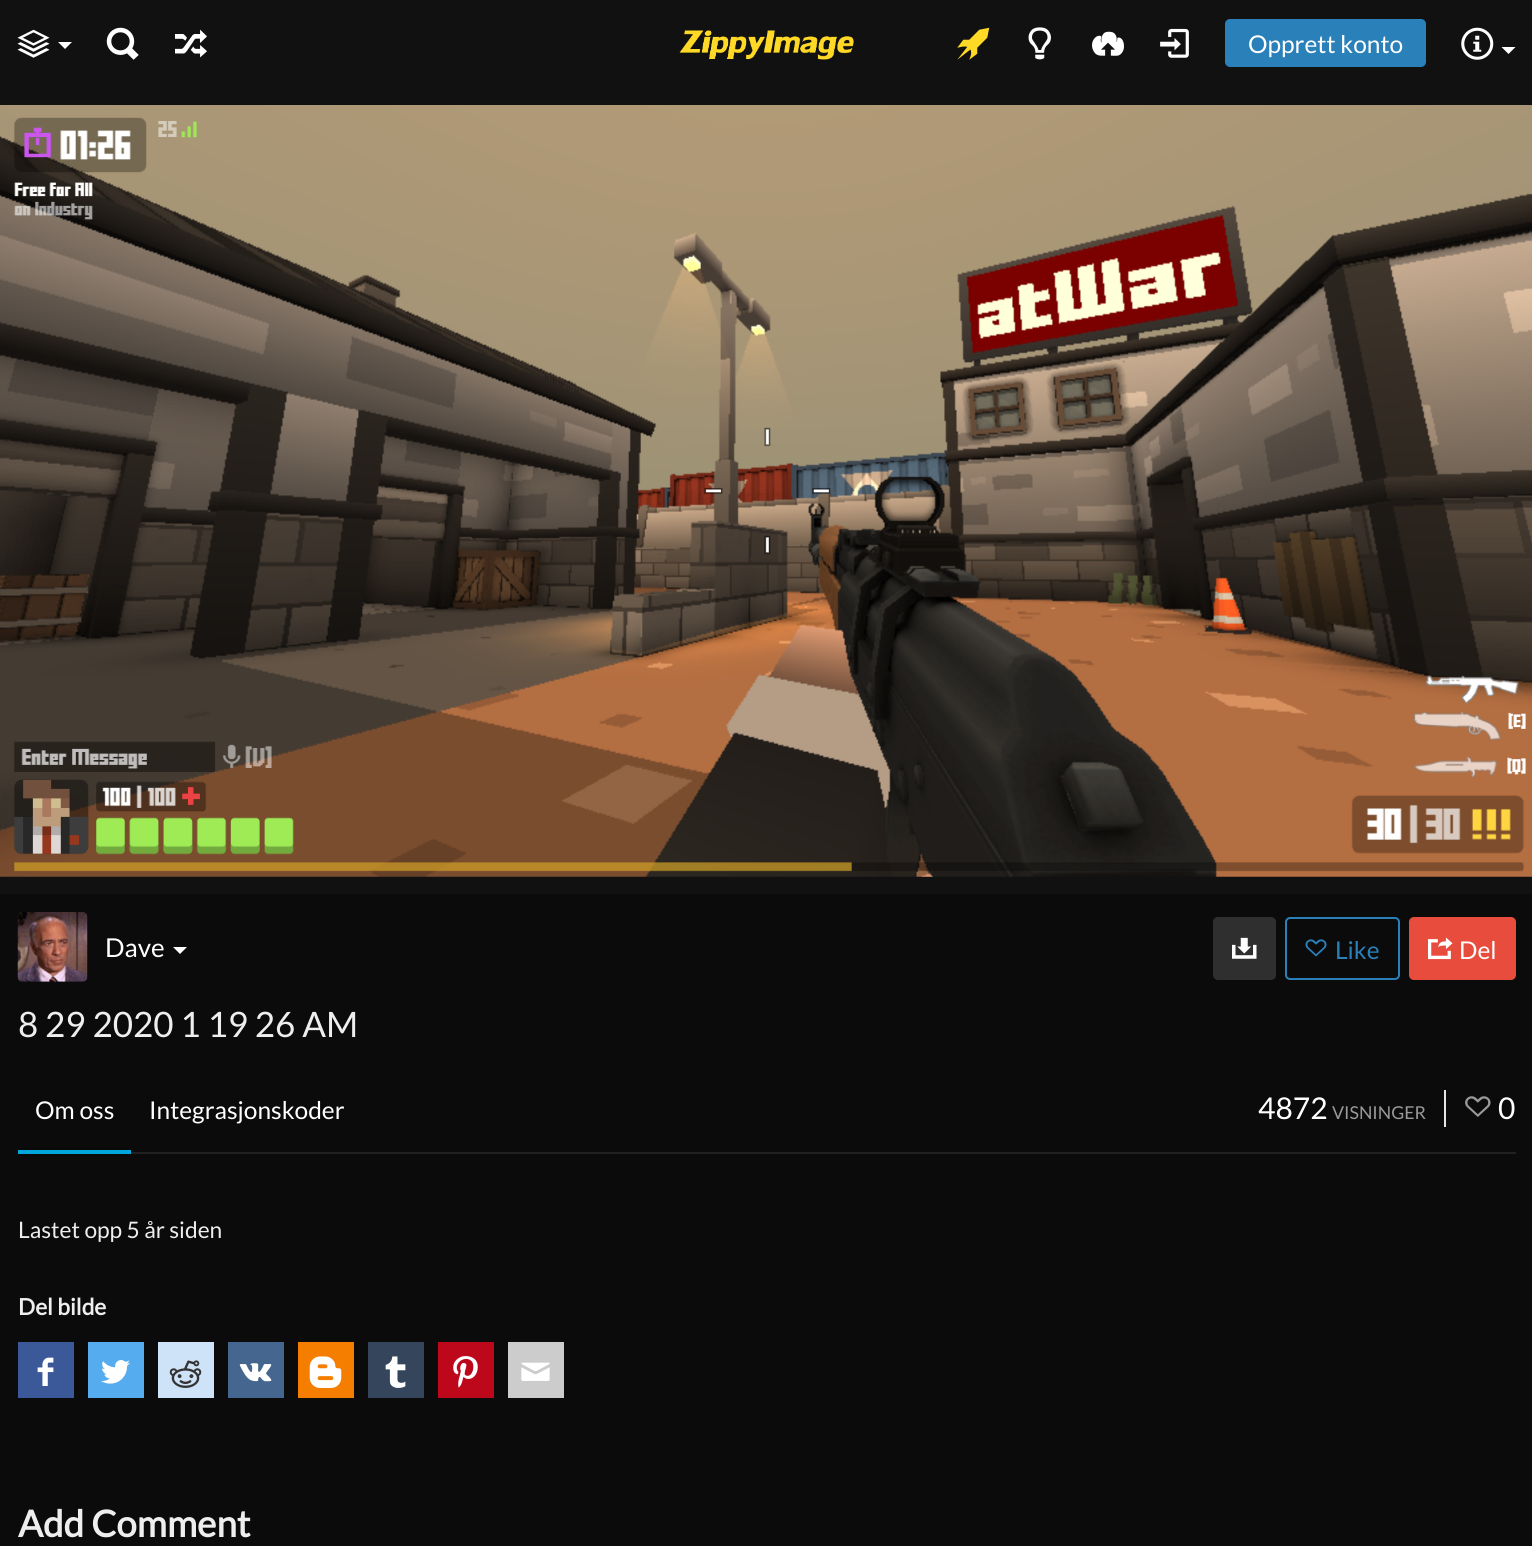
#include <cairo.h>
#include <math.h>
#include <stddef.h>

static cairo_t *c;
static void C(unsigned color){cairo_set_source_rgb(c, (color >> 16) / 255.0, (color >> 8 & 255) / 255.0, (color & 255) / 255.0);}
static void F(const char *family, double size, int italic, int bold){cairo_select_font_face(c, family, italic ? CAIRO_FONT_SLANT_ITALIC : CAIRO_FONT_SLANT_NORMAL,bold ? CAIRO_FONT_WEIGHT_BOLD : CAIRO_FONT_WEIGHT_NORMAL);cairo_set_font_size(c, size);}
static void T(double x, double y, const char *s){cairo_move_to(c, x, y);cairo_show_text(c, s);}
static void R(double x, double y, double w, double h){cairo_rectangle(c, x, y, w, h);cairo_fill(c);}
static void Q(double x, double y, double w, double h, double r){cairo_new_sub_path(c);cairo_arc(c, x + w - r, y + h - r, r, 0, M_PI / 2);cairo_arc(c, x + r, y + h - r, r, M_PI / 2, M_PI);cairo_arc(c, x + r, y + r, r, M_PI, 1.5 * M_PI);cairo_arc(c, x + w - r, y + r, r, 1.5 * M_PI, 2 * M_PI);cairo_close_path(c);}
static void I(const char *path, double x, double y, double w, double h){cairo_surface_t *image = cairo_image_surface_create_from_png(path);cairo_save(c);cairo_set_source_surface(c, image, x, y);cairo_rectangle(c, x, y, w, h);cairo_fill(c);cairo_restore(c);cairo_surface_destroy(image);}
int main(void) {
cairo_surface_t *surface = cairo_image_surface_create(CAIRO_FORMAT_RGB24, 1532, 1546);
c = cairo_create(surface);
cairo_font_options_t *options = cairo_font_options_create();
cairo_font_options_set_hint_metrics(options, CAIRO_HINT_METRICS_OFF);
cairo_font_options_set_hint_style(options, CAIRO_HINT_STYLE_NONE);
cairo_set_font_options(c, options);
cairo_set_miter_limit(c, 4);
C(0x0b0b0b);
cairo_paint(c);
C(0x111111);
R(0,0,1532,894);
I("1.png",17,29,33,29);
C(0xffffff);
cairo_new_path(c);
cairo_move_to(c,58,42);
cairo_line_to(c,72,42);
cairo_line_to(c,65,49);
cairo_close_path(c);
cairo_fill(c);
I("2.png",106,27,33,33);
I("3.png",175,29,32,29);
I("4.png",679,30,175,30);
I("5.png",957,27,33,33);
I("6.png",1028,27,23,33);
I("7.png",1092,31,32,25);
I("8.png",1160,28,29,30);
C(0x2a80b9);
Q(1225,19,201,48,5);
cairo_fill(c);
F("Lato",24.5,0,0);
C(0xffffff);
T(1248,53,"Opprett konto");
I("9.png",1461,27,33,33);
cairo_new_path(c);
cairo_move_to(c,1501.5,47);
cairo_line_to(c,1515.5,47);
cairo_line_to(c,1508.5,54);
cairo_close_path(c);
cairo_fill(c);
I("10.png",0,105,1532,772);
I("11.png",17,912,71,70);
F("Lato",26,0,0);
T(105,957,"Dave");
cairo_new_path(c);
cairo_move_to(c,173,947);
cairo_line_to(c,187,947);
cairo_line_to(c,180,954);
cairo_close_path(c);
cairo_fill(c);
C(0x2f2f2f);
Q(1213,917,63,63,5);
cairo_fill(c);
I("12.png",1232,937,25,22);
Q(1286,918,113,61,4);
C(0x2a80b9);
cairo_stroke(c);
I("13.png",1305,939,22,18);
F("Lato",24.5,0,0);
T(1335,959,"Like");
C(0xe84c3d);
Q(1409,917,107,63,5);
cairo_fill(c);
I("14.png",1428,937,25,23);
C(0xffffff);
T(1459,959,"Del");
F("Lato",35,0,0);
C(0xeeeeee);
T(18,1037,"8 29 2020 1 19 26 AM");
C(0x212121);
R(131,1152,1385,2);
C(0x00a7da);
R(18,1150,113,4);
F("Lato",24.5,0,0);
C(0xffffff);
T(35,1119,"Om oss");
T(149,1119,"Integrasjonskoder");
F("Lato",30,0,0);
T(1258,1119,"4872");
F("Lato",17.75,0,0);
C(0x999999);
T(1332,1119,"VISNINGER");
C(0xe5e5e5);
R(1444,1090,2,37);
I("15.png",1465,1096,26,21);
F("Lato",30,0,0);
C(0xffffff);
T(1498,1119,"0");
F("Lato",22.75,0,0);
C(0xeeeeee);
T(18,1238,"Lastet opp 5 år siden");
F("Lato",22.75,0,1);
T(18,1315,"Del bilde");
C(0x3b5998);
R(18,1342,56,56);
I("16.png",37,1357,17,29);
C(0x55acee);
R(88,1342,56,56);
I("17.png",101,1360,29,24);
C(0xcee3f8);
R(158,1342,56,56);
I("18.png",169,1360,33,28);
C(0x45668e);
R(228,1342,56,56);
I("19.png",239,1363,33,19);
C(0xf57d00);
R(298,1342,56,56);
I("20.png",309,1356,33,32);
C(0x35465c);
R(368,1342,56,56);
I("21.png",385,1356,21,32);
C(0xbd081c);
R(438,1342,56,56);
I("22.png",453,1356,25,32);
C(0xcccccc);
R(508,1342,56,56);
I("23.png",521,1362,29,19);
F("Lato",36.75,0,1);
C(0xeeeeee);
T(18,1537,"Add Comment");
cairo_surface_write_to_png(surface, "o.png");
cairo_font_options_destroy(options);
cairo_destroy(c);
cairo_surface_destroy(surface);
return 0;
}
